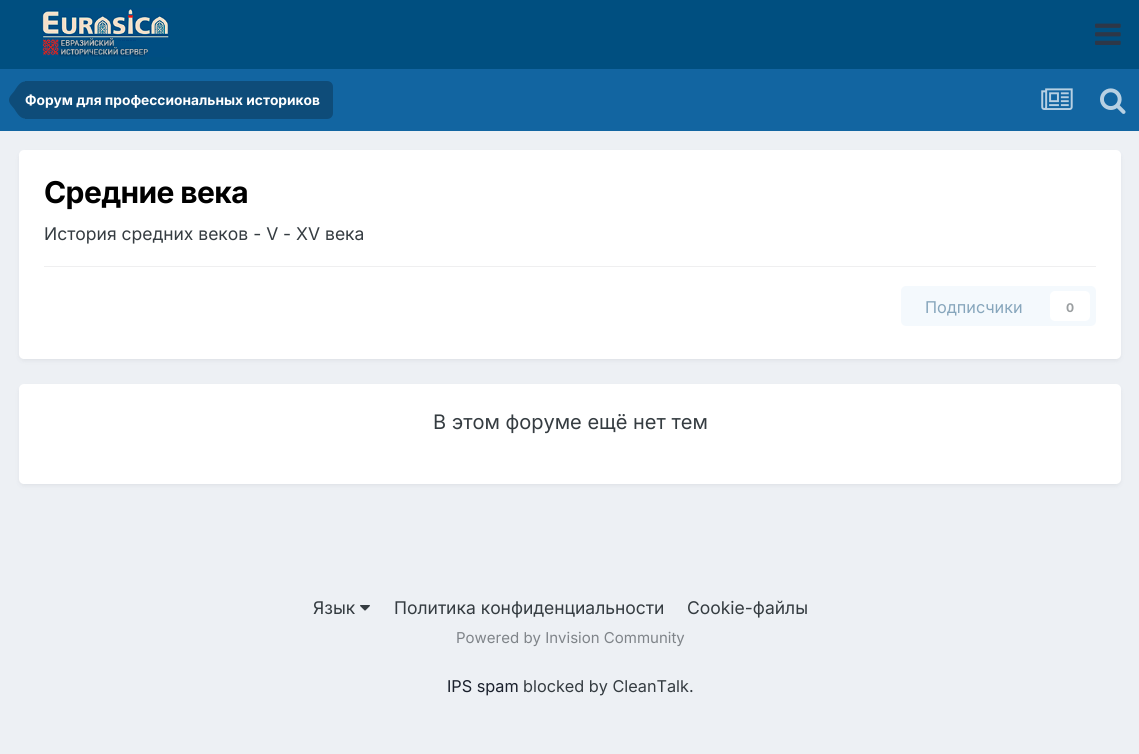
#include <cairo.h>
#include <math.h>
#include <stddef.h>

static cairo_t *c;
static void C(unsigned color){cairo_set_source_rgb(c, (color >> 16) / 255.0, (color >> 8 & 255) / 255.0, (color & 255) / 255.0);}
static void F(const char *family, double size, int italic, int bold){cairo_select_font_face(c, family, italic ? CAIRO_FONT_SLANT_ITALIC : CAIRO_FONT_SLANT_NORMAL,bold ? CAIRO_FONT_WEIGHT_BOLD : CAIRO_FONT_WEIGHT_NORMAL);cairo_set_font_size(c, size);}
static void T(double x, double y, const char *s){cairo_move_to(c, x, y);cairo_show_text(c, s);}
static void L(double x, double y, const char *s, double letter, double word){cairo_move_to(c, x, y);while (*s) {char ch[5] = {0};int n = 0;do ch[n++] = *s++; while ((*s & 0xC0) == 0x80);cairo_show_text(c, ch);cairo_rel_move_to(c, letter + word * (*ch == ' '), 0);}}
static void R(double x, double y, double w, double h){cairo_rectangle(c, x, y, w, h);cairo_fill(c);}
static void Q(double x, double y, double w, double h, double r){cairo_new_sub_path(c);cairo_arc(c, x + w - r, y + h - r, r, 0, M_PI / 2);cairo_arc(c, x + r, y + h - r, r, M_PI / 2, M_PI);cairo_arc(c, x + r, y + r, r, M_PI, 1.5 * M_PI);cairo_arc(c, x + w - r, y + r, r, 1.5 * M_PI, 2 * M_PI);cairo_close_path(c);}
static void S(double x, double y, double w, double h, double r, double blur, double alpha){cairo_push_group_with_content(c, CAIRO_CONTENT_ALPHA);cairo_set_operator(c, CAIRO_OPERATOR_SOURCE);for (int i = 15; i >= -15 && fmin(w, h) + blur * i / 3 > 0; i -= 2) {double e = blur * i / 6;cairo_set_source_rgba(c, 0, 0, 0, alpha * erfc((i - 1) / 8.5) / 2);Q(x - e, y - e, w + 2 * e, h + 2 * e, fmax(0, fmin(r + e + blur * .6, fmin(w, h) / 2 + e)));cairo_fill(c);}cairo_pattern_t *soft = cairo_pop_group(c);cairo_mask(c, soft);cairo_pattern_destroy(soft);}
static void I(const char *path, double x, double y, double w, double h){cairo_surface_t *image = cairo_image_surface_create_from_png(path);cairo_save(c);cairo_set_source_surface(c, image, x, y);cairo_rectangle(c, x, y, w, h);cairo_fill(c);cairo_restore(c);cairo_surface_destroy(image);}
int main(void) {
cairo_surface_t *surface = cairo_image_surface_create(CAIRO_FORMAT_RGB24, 1139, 754);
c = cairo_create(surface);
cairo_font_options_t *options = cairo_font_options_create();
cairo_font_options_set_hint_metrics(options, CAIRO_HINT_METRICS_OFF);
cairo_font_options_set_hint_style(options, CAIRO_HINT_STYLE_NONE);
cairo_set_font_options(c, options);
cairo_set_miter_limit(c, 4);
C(0xedf0f4);
cairo_paint(c);
C(0x004f80);
R(0,0,1139,69);
I("1.png",42,8,128,49);
I("2.png",1095,23,26,22);
C(0x1265a1);
R(0,69,1139,62);
C(0x0e4c79);
cairo_new_path(c);
cairo_move_to(c,25,81);
cairo_line_to(c,327,81);
cairo_curve_to(c,330.5,81,333,83.5,333,87);
cairo_line_to(c,333,113);
cairo_curve_to(c,333,116.5,330.5,119,327,119);
cairo_line_to(c,25,119);
cairo_close_path(c);
cairo_fill(c);
cairo_new_path(c);
cairo_move_to(c,25,100);
cairo_line_to(c,25,118.5);
cairo_curve_to(c,19.5,118.5,16.5,112,14,108.5);
cairo_curve_to(c,12,106,9,103.5,9,100);
cairo_close_path(c);
cairo_move_to(c,25,100);
cairo_line_to(c,9,100);
cairo_curve_to(c,9,96.5,12,94,14,91.5);
cairo_curve_to(c,16.5,88,19.5,81.5,25,81.5);
cairo_close_path(c);
cairo_fill(c);
F("Inter",13.75,0,1);
C(0xffffff);
T(25,105,"Форум для профессиональных историков");
I("3.png",1041,88,32,22);
I("4.png",1100,88,26,26);
C(0x2d3748);
S(20,154,1100,206,4,2.5,.1);
C(0xffffff);
Q(19,150,1102,209,5);
cairo_fill(c);
F("Inter",30,0,1);
C(0x000000);
L(44,203,"Средние века",-.6,0);
F("Inter",17.5,0,0);
C(0x353c41);
T(44,240,"История средних веков - V - XV века");
C(0xefeff0);
R(44,266,1052,1);
C(0xf4f9fd);
Q(901,286,195,40,5);
cairo_fill(c);
F("Inter",16.25,0,0);
C(0x87a6bc);
T(925,313,"Подписчики");
C(0xffffff);
Q(1050,291,40,30,5);
cairo_fill(c);
F("Inter",12,0,1);
C(0x9a9ea0);
T(1066,312,"0");
C(0x2d3748);
S(20,388,1100,97,4,2.5,.1);
C(0xffffff);
Q(19,384,1102,100,5);
cairo_fill(c);
F("Inter",20,0,0);
C(0x353c41);
T(433,429,"В этом форуме ещё нет тем");
F("Inter",17.5,0,0);
T(313,614,"Язык");
I("5.png",360,605,10,6);
T(394,614,"Политика конфиденциальности");
T(687,614,"Cookie-файлы");
F("Inter",15,0,0);
C(0x7f8489);
T(456,643,"Powered by Invision Community");
F("Inter",16.25,0,0);
C(0x1a202c);
T(447,692,"IPS spam");
C(0x353c41);
T(523,692,"blocked by CleanTalk.");
cairo_surface_write_to_png(surface, "o.png");
cairo_font_options_destroy(options);
cairo_destroy(c);
cairo_surface_destroy(surface);
return 0;
}
